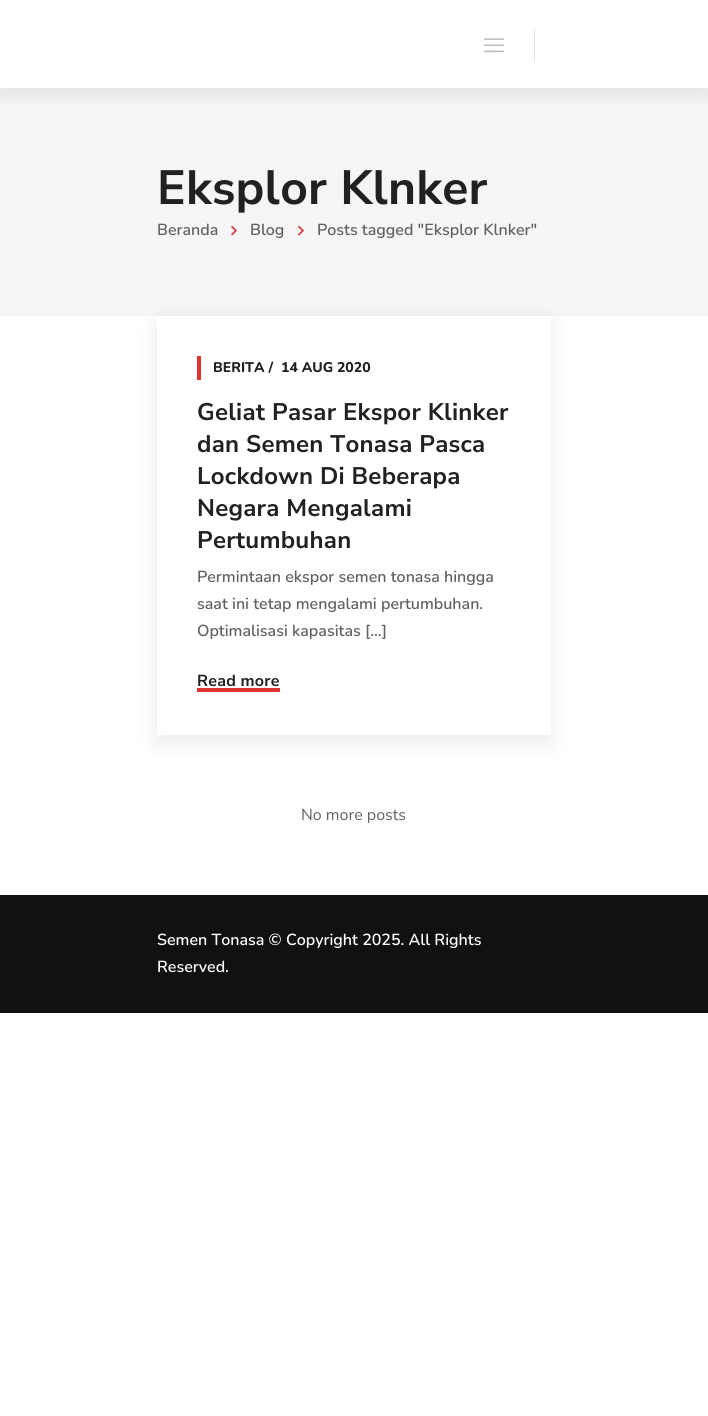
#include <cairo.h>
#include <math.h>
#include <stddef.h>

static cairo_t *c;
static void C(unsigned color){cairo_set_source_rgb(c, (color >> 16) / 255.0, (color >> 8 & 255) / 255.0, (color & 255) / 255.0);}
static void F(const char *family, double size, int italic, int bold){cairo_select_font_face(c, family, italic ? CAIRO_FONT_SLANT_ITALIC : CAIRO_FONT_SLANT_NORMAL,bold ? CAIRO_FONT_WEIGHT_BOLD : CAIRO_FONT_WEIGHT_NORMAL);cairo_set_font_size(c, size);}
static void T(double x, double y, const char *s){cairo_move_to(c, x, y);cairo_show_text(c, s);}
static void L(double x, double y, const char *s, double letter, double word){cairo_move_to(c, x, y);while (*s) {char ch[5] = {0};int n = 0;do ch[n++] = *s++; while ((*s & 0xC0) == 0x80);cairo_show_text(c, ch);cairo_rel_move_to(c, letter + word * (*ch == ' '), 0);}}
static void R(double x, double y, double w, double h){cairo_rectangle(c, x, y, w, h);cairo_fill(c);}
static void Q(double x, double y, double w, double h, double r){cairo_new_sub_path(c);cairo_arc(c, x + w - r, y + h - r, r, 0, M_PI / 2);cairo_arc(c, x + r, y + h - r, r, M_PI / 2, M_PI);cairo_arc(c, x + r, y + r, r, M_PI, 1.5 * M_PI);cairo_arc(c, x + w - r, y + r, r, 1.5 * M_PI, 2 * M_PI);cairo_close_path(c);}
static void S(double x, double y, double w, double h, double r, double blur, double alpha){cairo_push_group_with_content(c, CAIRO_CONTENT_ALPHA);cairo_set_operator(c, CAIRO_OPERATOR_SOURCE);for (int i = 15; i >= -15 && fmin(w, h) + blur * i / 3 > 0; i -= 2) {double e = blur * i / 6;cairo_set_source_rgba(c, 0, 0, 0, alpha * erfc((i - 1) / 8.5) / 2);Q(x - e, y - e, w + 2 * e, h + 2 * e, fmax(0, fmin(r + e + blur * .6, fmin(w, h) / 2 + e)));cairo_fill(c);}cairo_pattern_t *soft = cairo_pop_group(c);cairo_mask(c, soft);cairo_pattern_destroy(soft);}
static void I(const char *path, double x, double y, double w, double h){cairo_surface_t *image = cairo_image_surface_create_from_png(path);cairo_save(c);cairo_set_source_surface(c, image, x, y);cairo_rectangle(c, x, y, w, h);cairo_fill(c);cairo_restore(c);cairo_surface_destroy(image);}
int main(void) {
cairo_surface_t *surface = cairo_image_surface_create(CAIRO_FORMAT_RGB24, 708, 1416);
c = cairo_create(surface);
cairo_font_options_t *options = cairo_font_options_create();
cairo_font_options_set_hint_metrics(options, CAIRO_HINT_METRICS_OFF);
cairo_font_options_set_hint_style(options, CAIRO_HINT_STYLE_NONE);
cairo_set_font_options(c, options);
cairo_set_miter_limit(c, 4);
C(0xffffff);
cairo_paint(c);
C(0xf5f5f5);
R(0,88,708,228);
cairo_save(c);
cairo_rectangle(c,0,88,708,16);
cairo_clip(c);
C(0x000000);
S(0,8,708,88,0,12,.08);
cairo_restore(c);
I("1.png",484,38,20,15);
C(0xe0e0e0);
R(534,29,1,32);
F("Nunito Sans",48,0,1);
C(0x212121);
L(157,204,"Eksplor Klnker",.25,0);
F("Nunito SemiBold",16,0,0);
C(0x616161);
T(157,235,"Beranda");
I("2.png",231,225,6,11);
T(250,235,"Blog");
I("2.png",298,225,6,11);
T(317,235,"Posts tagged \"Eksplor Klnker\"");
cairo_save(c);
cairo_set_fill_rule(c,CAIRO_FILL_RULE_EVEN_ODD);
cairo_new_path(c);
cairo_move_to(c,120,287);
cairo_line_to(c,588,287);
cairo_line_to(c,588,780);
cairo_line_to(c,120,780);
cairo_close_path(c);
cairo_move_to(c,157,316);
cairo_line_to(c,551,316);
cairo_line_to(c,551,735);
cairo_line_to(c,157,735);
cairo_close_path(c);
cairo_clip(c);
C(0x000000);
S(157,324,394,419,0,12,.08);
cairo_restore(c);
C(0xdd3333);
R(197,356,4,24);
F("Nunito ExtraBold",14,0,0);
C(0x212121);
T(213,372,"BERITA /");
T(281,372,"14 AUG 2020");
F("Nunito Sans",24,0,1);
L(197,420,"Geliat Pasar Ekspor Klinker",.25,0);
L(197,452,"dan Semen Tonasa Pasca",.25,0);
L(197,484,"Lockdown Di Beberapa",.25,0);
L(197,516,"Negara Mengalami",.25,0);
L(197,548,"Pertumbuhan",.25,0);
F("Nunito SemiBold",16,0,0);
C(0x616161);
T(197,582,"Permintaan ekspor semen tonasa hingga");
T(197,609,"saat ini tetap mengalami pertumbuhan.");
T(197,636,"Optimalisasi kapasitas [...]");
F("Nunito Sans",16,0,1);
C(0x212121);
L(197,686,"Read more",.25,0);
C(0xdd3333);
R(197,688,83,4);
F("Nunito",16,0,0);
C(0x616161);
T(301,820,"No more posts");
C(0x111111);
R(0,895,708,118);
F("Nunito SemiBold",16,0,0);
C(0xffffff);
T(157,945,"Semen Tonasa © Copyright 2025. All Rights");
T(157,972,"Reserved.");
cairo_surface_write_to_png(surface, "o.png");
cairo_font_options_destroy(options);
cairo_destroy(c);
cairo_surface_destroy(surface);
return 0;
}
